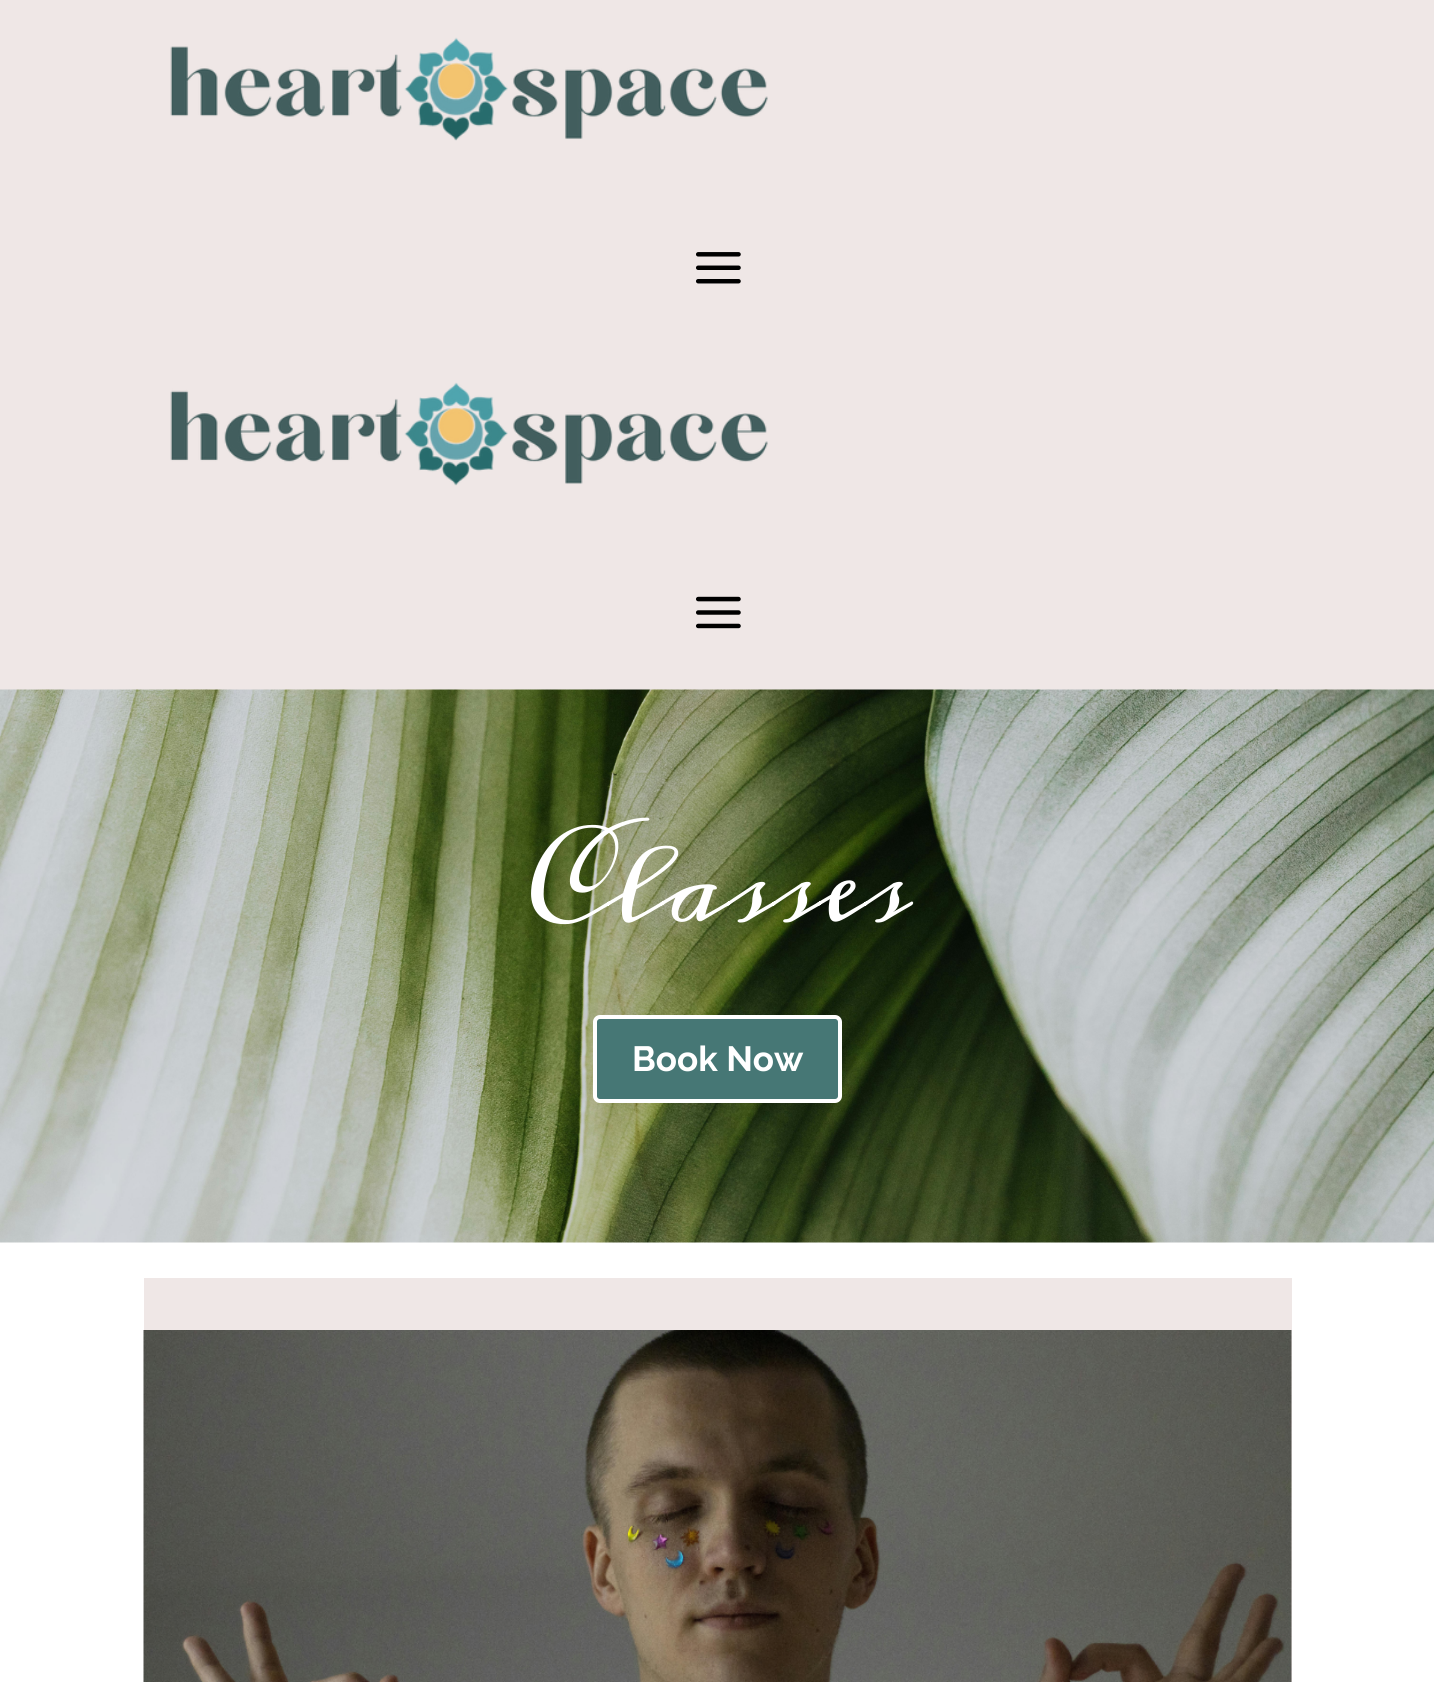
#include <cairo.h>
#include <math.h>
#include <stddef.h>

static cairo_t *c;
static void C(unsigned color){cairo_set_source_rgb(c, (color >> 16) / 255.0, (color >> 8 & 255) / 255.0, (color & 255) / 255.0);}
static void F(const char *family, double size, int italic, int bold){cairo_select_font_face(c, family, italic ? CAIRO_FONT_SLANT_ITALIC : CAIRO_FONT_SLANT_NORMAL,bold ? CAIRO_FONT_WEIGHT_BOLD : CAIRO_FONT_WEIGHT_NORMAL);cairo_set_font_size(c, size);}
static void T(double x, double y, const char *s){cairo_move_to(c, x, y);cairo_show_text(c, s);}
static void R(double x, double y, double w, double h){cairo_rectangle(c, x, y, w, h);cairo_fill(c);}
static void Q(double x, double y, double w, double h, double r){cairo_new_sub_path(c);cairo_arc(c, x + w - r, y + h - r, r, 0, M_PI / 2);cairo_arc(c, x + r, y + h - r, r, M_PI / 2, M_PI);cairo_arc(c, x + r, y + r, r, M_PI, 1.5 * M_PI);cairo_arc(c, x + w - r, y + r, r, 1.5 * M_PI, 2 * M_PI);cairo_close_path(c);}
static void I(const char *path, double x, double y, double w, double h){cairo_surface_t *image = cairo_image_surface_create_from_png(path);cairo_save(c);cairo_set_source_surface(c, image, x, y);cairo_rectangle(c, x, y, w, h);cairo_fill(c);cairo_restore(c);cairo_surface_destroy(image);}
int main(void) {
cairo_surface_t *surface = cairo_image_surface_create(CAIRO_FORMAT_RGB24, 1434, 1682);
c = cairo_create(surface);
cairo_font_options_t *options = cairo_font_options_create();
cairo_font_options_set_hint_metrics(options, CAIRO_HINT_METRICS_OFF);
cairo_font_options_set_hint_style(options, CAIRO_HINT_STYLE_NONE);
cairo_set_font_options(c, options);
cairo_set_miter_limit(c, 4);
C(0xffffff);
cairo_paint(c);
C(0xefe7e6);
R(0,0,1434,690);
I("1.png",170,37,598,104);
I("2.png",696,252,45,32);
I("3.png",170,382,598,104);
I("4.png",696,596,45,33);
I("5.png",0,689,1434,554);
F("Meddon",96.25,0,0);
C(0xffffff);
T(524,921,"Classes");
C(0x467775);
Q(595,1017,245,84,5);
cairo_fill_preserve(c);
C(0xffffff);
cairo_set_line_width(c,4);
cairo_stroke(c);
F("Raleway",35,0,1);
T(632,1071,"Book Now");
C(0xefe7e6);
R(144,1278,1148,404);
I("6.png",143,1330,1149,352);
cairo_surface_write_to_png(surface, "o.png");
cairo_font_options_destroy(options);
cairo_destroy(c);
cairo_surface_destroy(surface);
return 0;
}
